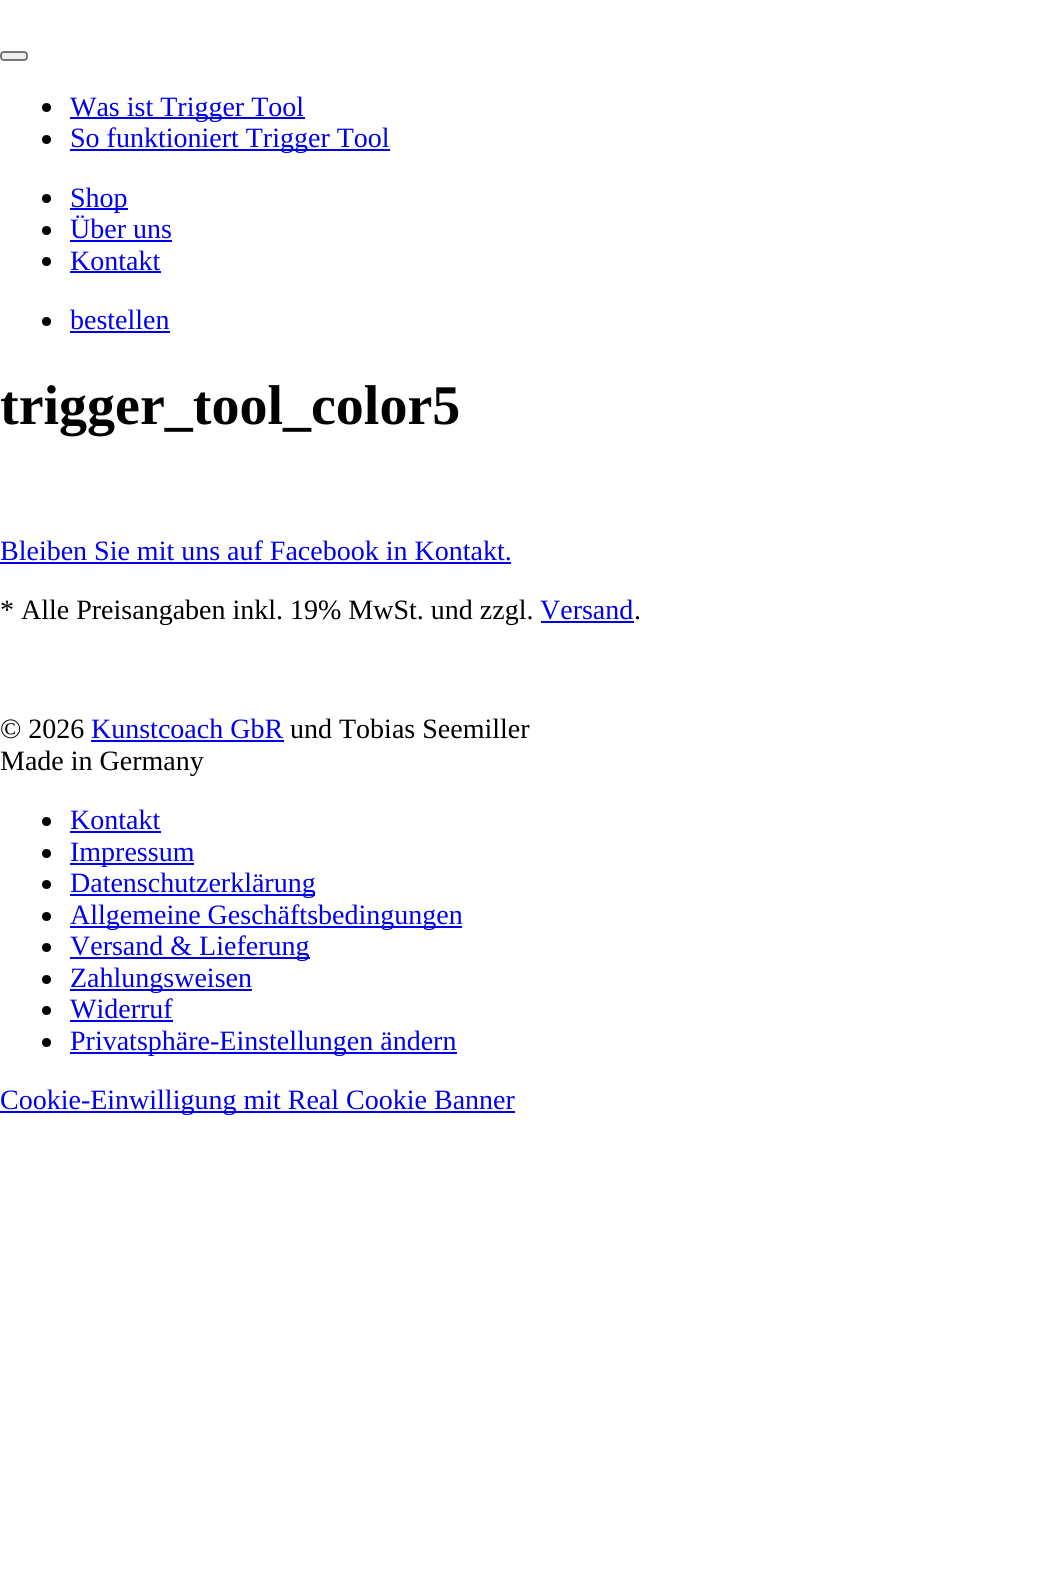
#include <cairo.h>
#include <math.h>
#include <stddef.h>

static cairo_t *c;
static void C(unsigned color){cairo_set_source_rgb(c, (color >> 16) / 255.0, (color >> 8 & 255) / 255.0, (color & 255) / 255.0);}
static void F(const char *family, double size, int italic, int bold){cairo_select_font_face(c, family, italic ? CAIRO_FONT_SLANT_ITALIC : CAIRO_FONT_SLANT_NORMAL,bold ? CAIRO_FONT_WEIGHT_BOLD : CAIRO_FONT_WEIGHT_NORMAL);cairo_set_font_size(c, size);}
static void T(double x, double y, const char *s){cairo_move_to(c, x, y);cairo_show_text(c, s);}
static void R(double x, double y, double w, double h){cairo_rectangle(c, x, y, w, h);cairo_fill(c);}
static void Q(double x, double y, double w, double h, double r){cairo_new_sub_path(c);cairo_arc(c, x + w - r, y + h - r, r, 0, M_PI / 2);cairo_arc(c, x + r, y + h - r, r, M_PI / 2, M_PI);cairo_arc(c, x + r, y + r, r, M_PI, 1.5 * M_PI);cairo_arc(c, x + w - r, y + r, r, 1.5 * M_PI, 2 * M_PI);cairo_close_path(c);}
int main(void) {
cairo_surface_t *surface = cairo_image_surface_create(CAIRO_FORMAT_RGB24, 1044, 1570);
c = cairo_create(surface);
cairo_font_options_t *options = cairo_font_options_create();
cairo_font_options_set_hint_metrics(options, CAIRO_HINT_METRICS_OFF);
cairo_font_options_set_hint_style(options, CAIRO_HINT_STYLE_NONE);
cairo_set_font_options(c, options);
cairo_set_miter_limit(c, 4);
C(0xffffff);
cairo_paint(c);
C(0xefefef);
Q(1,52,26,8,3);
cairo_fill_preserve(c);
C(0x767676);
cairo_stroke(c);
C(0x000000);
cairo_arc(c,46.5,107.5,4.5,0,2 * M_PI);
cairo_fill(c);
C(0x0000ee);
R(70,117,235,2);
F("Liberation Serif",28,0,0);
T(70,116,"Was ist Trigger Tool");
C(0x000000);
cairo_new_path(c);
cairo_arc(c,46.5,139.5,4.5,0,2 * M_PI);
cairo_fill(c);
C(0x0000ee);
R(70,149,320,2);
T(70,147,"So funktioniert Trigger Tool");
C(0x000000);
cairo_new_path(c);
cairo_arc(c,46.5,198.5,4.5,0,2 * M_PI);
cairo_fill(c);
C(0x0000ee);
R(70,208,58,2);
T(70,207,"Shop");
C(0x000000);
cairo_new_path(c);
cairo_arc(c,46.5,230.5,4.5,0,2 * M_PI);
cairo_fill(c);
C(0x0000ee);
T(70,238,"Über uns");
R(70,240,102,2);
C(0x000000);
cairo_new_path(c);
cairo_arc(c,46.5,261.5,4.5,0,2 * M_PI);
cairo_fill(c);
C(0x0000ee);
T(70,270,"Kontakt");
R(70,271,91,2);
C(0x000000);
cairo_new_path(c);
cairo_arc(c,46.5,321.5,4.5,0,2 * M_PI);
cairo_fill(c);
C(0x0000ee);
T(70,329,"bestellen");
R(70,331,100,2);
F("Liberation Serif",56,0,1);
C(0x000000);
T(0,424,"trigger_tool_color5");
F("Liberation Serif",28,0,0);
C(0x0000ee);
T(0,560,"Bleiben Sie mit uns auf Facebook in Kontakt.");
R(0,562,511,2);
C(0x000000);
T(0,619,"* Alle Preisangaben inkl. 19% MwSt. und zzgl.");
C(0x0000ee);
T(540,619,"Versand");
R(541,621,93,2);
C(0x000000);
T(634,619,".");
T(0,738,"© 2026");
C(0x0000ee);
T(91,738,"Kunstcoach GbR");
R(91,740,193,2);
C(0x000000);
T(290,738,"und Tobias Seemiller");
T(0,770,"Made in Germany");
cairo_new_path(c);
cairo_arc(c,46.5,821.5,4.5,0,2 * M_PI);
cairo_fill(c);
C(0x0000ee);
T(70,829,"Kontakt");
R(70,831,91,2);
C(0x000000);
cairo_new_path(c);
cairo_arc(c,46.5,853.5,4.5,0,2 * M_PI);
cairo_fill(c);
C(0x0000ee);
R(70,863,124,2);
T(70,861,"Impressum");
C(0x000000);
cairo_new_path(c);
cairo_arc(c,46.5,884.5,4.5,0,2 * M_PI);
cairo_fill(c);
C(0x0000ee);
R(70,894,245,2);
T(70,892,"Datenschutzerklärung");
C(0x000000);
cairo_new_path(c);
cairo_arc(c,46.5,916.5,4.5,0,2 * M_PI);
cairo_fill(c);
C(0x0000ee);
R(70,926,392,2);
T(70,924,"Allgemeine Geschäftsbedingungen");
C(0x000000);
cairo_new_path(c);
cairo_arc(c,46.5,947.5,4.5,0,2 * M_PI);
cairo_fill(c);
C(0x0000ee);
R(70,957,240,2);
T(70,955,"Versand & Lieferung");
C(0x000000);
cairo_new_path(c);
cairo_arc(c,46.5,979.5,4.5,0,2 * M_PI);
cairo_fill(c);
C(0x0000ee);
R(70,989,182,2);
T(70,987,"Zahlungsweisen");
C(0x000000);
cairo_new_path(c);
cairo_arc(c,46.5,1010.5,4.5,0,2 * M_PI);
cairo_fill(c);
C(0x0000ee);
T(70,1018,"Widerruf");
R(70,1020,103,2);
C(0x000000);
cairo_new_path(c);
cairo_arc(c,46.5,1042.5,4.5,0,2 * M_PI);
cairo_fill(c);
C(0x0000ee);
R(70,1052,387,2);
T(70,1050,"Privatsphäre-Einstellungen ändern");
R(0,1111,515,2);
T(0,1109,"Cookie-Einwilligung mit Real Cookie Banner");
cairo_surface_write_to_png(surface, "o.png");
cairo_font_options_destroy(options);
cairo_destroy(c);
cairo_surface_destroy(surface);
return 0;
}
